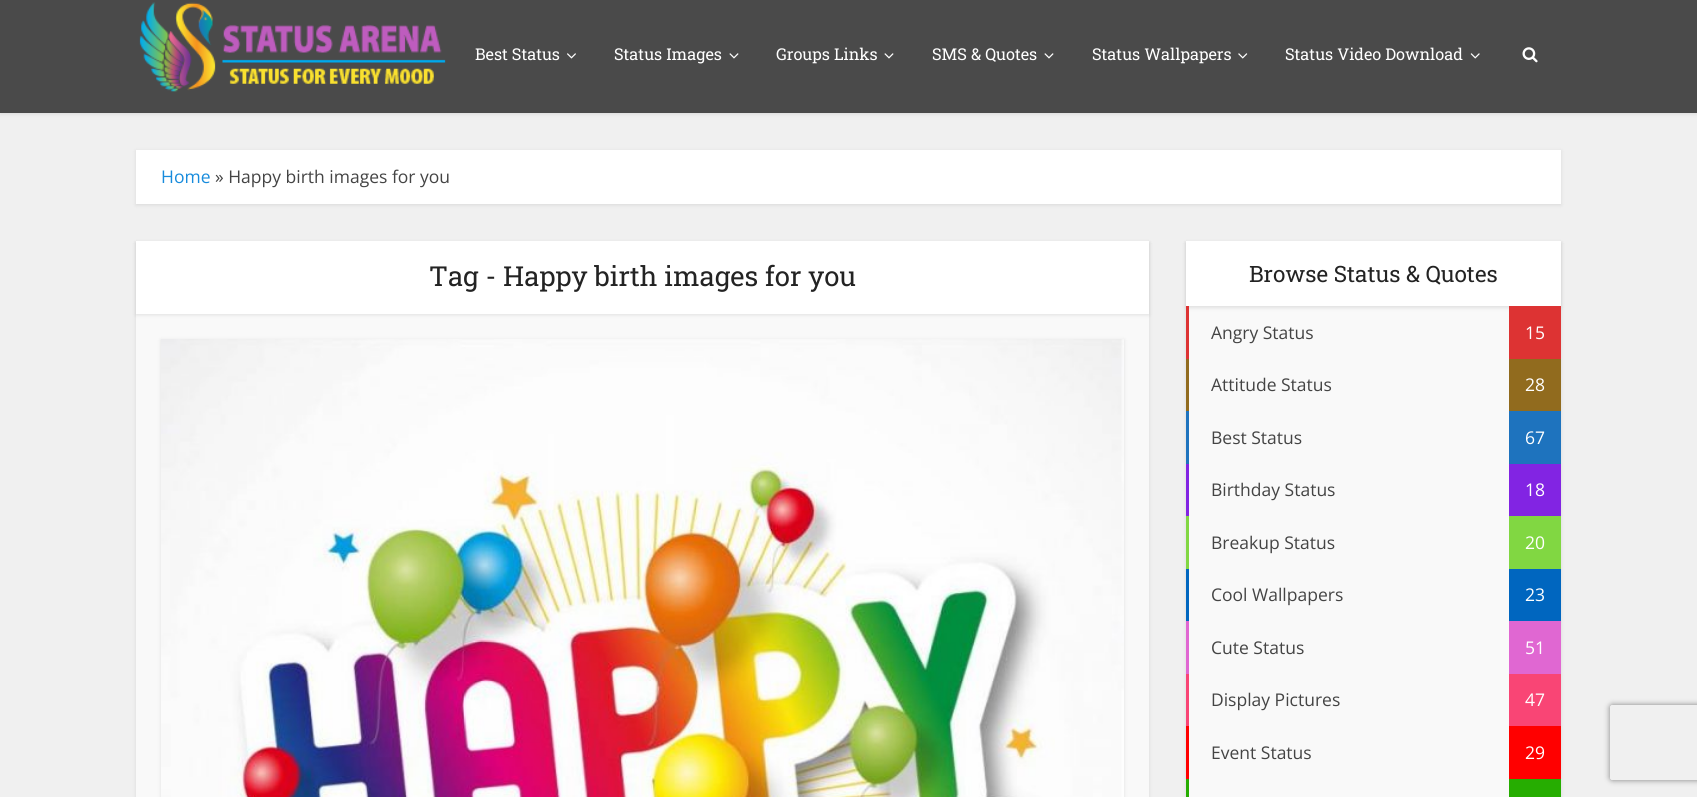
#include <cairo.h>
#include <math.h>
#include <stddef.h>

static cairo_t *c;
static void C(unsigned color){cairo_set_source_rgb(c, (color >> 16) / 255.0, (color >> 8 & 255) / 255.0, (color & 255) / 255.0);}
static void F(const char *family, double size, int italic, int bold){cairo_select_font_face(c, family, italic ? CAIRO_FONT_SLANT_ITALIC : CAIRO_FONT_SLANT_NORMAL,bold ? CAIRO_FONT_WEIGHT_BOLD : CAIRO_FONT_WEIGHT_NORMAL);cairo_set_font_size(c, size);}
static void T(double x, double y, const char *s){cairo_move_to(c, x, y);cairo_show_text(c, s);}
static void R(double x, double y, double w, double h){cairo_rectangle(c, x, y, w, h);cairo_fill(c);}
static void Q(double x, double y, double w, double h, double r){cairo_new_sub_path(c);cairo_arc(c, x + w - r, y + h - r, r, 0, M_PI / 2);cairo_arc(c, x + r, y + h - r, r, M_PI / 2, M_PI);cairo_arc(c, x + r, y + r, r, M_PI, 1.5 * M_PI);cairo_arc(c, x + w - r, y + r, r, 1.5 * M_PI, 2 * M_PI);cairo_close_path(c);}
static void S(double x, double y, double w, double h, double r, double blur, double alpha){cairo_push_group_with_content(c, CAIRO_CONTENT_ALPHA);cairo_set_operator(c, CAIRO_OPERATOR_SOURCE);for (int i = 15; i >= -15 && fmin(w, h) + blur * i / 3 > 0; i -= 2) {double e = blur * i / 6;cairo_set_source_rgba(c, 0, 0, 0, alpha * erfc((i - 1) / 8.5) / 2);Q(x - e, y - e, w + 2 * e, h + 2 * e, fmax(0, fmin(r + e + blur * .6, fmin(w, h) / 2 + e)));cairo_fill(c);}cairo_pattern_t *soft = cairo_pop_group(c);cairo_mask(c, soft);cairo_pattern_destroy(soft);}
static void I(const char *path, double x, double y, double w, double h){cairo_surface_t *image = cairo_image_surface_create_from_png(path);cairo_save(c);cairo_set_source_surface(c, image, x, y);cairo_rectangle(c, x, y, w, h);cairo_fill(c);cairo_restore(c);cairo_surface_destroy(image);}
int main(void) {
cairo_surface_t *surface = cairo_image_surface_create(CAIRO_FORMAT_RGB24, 1697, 797);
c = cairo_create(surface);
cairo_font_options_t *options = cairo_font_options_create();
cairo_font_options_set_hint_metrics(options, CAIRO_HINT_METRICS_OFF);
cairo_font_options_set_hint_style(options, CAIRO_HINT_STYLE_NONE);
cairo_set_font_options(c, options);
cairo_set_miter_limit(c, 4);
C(0xf0f0f0);
cairo_paint(c);
C(0x000000);
S(0,1,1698,113,0,2,.1);
C(0x4a4a4a);
R(0,0,1697,113);
I("1.png",139,2,307,90);
F("Roboto Slab",16.25,0,0);
C(0xffffff);
T(475,60,"Best Status");
I("2.png",567,53,9,6);
T(614,60,"Status Images");
I("3.png",729,53,10,6);
T(776,60,"Groups Links");
I("3.png",884,53,10,6);
T(932,60,"SMS & Quotes");
I("3.png",1044,53,10,6);
T(1092,60,"Status Wallpapers");
I("4.png",1238,53,10,6);
T(1285,60,"Status Video Download");
I("5.png",1470,53,10,6);
I("6.png",1522,47,16,16);
C(0x000000);
S(136,151,1425,54,0,2,.1);
C(0xffffff);
R(136,150,1425,54);
F("Open Sans",17.5,0,0);
C(0x178bdc);
T(161,183,"Home");
C(0x444444);
T(215,183,"» Happy birth images for you");
C(0x000000);
S(136,243,1013,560,0,2,.1);
C(0xf9f9f9);
R(136,314,1013,483);
C(0x000000);
S(136,243,1013,72,0,2,.1);
C(0xffffff);
R(136,241,1013,73);
F("Roboto Slab",27.5,0,0);
C(0x232323);
T(429,286,"Tag - Happy birth images for you");
C(0x000000);
S(161,340,963,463,0,2,.1);
I("7.png",161,339,963,458);
S(1186,243,375,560,0,2,.1);
C(0xf9f9f9);
R(1189,306,320,491);
C(0x000000);
S(1186,243,375,65,0,2,.1);
C(0xffffff);
R(1186,241,375,65);
F("Roboto Slab",22.5,0,0);
C(0x232323);
T(1249,282,"Browse Status & Quotes");
C(0xdd3333);
R(1186,306,3,53);
F("Open Sans",17.5,0,0);
C(0x444444);
T(1211,339,"Angry Status");
C(0xdd3333);
R(1509,306,52,53);
C(0xffffff);
T(1525,339,"15");
C(0x916b1e);
R(1186,359,3,52);
C(0x444444);
T(1211,391,"Attitude Status");
C(0x916b1e);
R(1509,359,52,52);
C(0xffffff);
T(1525,391,"28");
C(0x1e73be);
R(1186,411,3,53);
C(0x444444);
T(1211,444,"Best Status");
C(0x1e73be);
R(1509,411,52,53);
C(0xffffff);
T(1525,444,"67");
C(0x8224e3);
R(1186,464,3,52);
C(0x444444);
T(1211,496,"Birthday Status");
C(0x8224e3);
R(1509,464,52,52);
C(0xffffff);
T(1525,496,"18");
C(0x81d742);
R(1186,516,3,53);
C(0x444444);
T(1211,549,"Breakup Status");
C(0x81d742);
R(1509,516,52,53);
C(0xffffff);
T(1525,549,"20");
C(0x0066bf);
R(1186,569,3,52);
C(0x444444);
T(1211,601,"Cool Wallpapers");
C(0x0066bf);
R(1509,569,52,52);
C(0xffffff);
T(1525,601,"23");
C(0xe067d2);
R(1186,621,3,53);
C(0x444444);
T(1211,654,"Cute Status");
C(0xe067d2);
R(1509,621,52,53);
C(0xffffff);
T(1525,654,"51");
C(0xf94575);
R(1186,674,3,52);
C(0x444444);
T(1211,706,"Display Pictures");
C(0xf94575);
R(1509,674,52,52);
C(0xffffff);
T(1525,706,"47");
C(0xff0000);
R(1186,726,3,53);
C(0x444444);
T(1211,759,"Event Status");
C(0xff0000);
R(1509,726,52,53);
C(0xffffff);
T(1525,759,"29");
C(0x26ad01);
R(1186,779,3,18);
R(1509,779,52,18);
cairo_save(c);
cairo_set_fill_rule(c,CAIRO_FILL_RULE_EVEN_ODD);
cairo_new_path(c);
cairo_move_to(c,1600,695);
cairo_line_to(c,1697,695);
cairo_line_to(c,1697,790);
cairo_line_to(c,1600,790);
cairo_close_path(c);
cairo_move_to(c,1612.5,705);
cairo_line_to(c,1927.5,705);
cairo_curve_to(c,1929,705,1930,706,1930,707.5);
cairo_line_to(c,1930,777.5);
cairo_curve_to(c,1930,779,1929,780,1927.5,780);
cairo_line_to(c,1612.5,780);
cairo_curve_to(c,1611,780,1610,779,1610,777.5);
cairo_line_to(c,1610,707.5);
cairo_curve_to(c,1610,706,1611,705,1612.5,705);
cairo_close_path(c);
cairo_clip(c);
C(0x808080);
S(1610,705,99,75,2.5,3,1);
cairo_restore(c);
cairo_surface_write_to_png(surface, "o.png");
cairo_font_options_destroy(options);
cairo_destroy(c);
cairo_surface_destroy(surface);
return 0;
}
